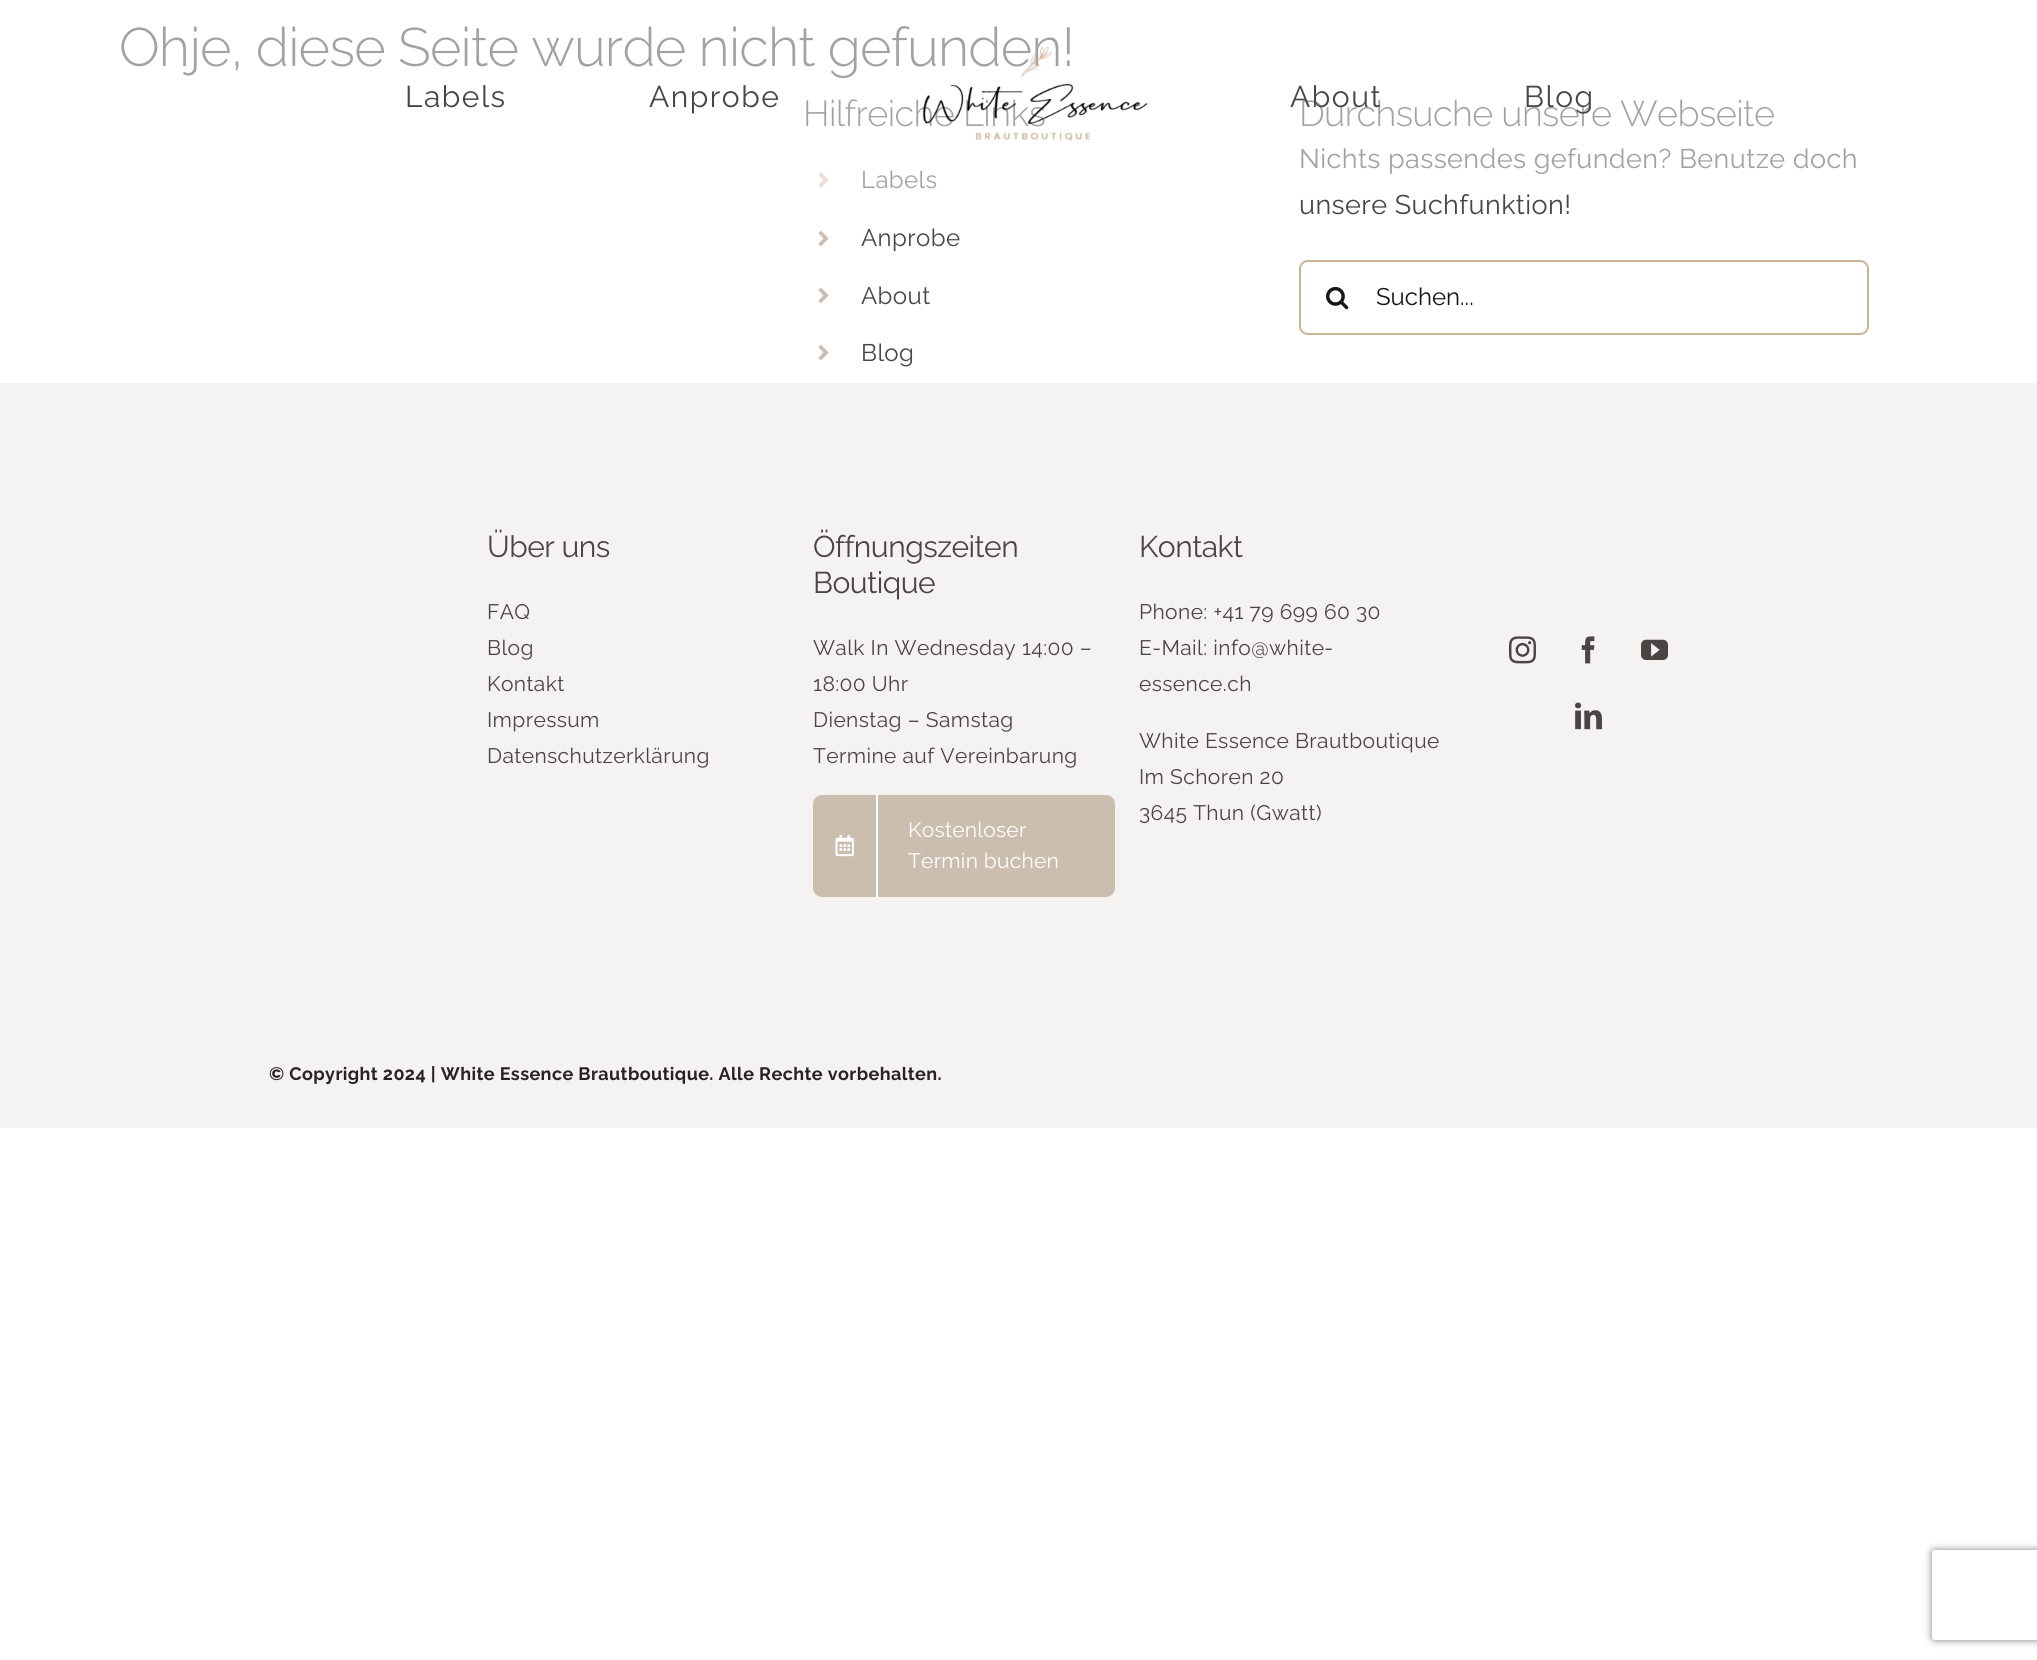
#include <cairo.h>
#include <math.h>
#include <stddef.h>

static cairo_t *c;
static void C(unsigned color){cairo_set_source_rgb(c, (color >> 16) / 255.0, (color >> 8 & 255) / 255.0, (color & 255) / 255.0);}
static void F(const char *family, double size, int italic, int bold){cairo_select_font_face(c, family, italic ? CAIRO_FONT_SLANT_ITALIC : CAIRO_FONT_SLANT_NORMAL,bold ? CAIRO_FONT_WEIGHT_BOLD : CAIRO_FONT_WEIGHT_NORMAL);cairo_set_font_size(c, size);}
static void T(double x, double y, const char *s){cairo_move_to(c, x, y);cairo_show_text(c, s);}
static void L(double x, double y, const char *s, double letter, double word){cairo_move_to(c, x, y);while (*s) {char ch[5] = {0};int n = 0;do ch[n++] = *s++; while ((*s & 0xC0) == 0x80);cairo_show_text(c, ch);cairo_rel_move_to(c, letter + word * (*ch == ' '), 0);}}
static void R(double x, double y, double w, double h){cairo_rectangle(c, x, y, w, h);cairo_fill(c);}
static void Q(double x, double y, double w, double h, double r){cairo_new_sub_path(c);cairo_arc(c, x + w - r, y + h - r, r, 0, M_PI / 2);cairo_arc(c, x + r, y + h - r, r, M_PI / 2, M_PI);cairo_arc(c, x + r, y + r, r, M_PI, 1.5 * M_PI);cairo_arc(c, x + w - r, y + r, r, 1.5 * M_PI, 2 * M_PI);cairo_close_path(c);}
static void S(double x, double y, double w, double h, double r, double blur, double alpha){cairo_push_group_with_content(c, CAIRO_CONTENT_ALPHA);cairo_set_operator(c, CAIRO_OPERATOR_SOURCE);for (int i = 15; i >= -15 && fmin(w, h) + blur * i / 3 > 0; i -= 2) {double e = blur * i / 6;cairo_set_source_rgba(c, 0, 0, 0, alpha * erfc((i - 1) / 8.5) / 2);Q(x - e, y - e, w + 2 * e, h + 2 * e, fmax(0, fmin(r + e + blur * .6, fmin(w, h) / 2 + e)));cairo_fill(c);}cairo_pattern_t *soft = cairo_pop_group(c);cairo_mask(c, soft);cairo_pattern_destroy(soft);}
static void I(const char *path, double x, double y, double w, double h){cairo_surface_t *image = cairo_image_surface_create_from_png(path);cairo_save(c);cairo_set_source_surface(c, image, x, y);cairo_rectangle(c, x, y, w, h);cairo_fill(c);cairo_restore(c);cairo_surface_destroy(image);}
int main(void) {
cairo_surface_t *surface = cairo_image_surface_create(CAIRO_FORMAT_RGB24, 2037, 1660);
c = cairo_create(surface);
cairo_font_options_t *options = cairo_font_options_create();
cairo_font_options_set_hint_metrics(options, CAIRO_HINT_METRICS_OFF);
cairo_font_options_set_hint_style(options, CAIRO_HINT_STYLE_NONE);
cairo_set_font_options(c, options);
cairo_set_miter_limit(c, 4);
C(0xffffff);
cairo_paint(c);
F("Raleway Light",54,0,0);
C(0xa4a2a1);
L(119,66,"Ohje, diese Seite wurde nicht gefunden!",-.8,0);
F("Raleway Light",36,0,0);
L(803,126,"Hilfreiche Links",-.55,0);
I("1.png",818,172,11,16);
F("Raleway",24,0,0);
L(861,188,"Labels",.4,0);
I("2.png",818,231,11,15);
C(0x494543);
L(861,246,"Anprobe",.4,0);
I("2.png",818,288,11,15);
L(861,304,"About",.4,0);
I("2.png",818,345,11,15);
L(861,361,"Blog",.4,0);
F("Raleway Light",36,0,0);
C(0xa4a2a1);
L(1299,126,"Durchsuche unsere Webseite",-.55,0);
F("Raleway",27,0,0);
L(1299,168,"Nichts passendes gefunden? Benutze doch",.4,0);
C(0x494543);
L(1299,214,"unsere Suchfunktion!",.4,0);
Q(1300,261,568,73,8);
C(0xcbb399);
cairo_stroke(c);
I("3.png",1326,286,23,24);
F("Raleway",24,0,0);
C(0x171614);
T(1376,305,"Suchen...");
F("Raleway",30,0,0);
C(0x494543);
L(405,107,"Labels",1.5,0);
L(649,107,"Anprobe",1.5,0);
I("4.png",922,46,226,95);
L(1290,107,"About",1.5,0);
L(1524,107,"Blog",1.5,0);
C(0xf5f3f2);
R(0,383,2037,745);
C(0x494543);
L(487,557,"Über uns",-.5,0);
F("Raleway",21,0,0);
L(487,619,"FAQ",.4,0);
L(487,655,"Blog",.4,0);
L(487,691,"Kontakt",.4,0);
L(487,727,"Impressum",.4,0);
L(487,763,"Datenschutzerklärung",.4,0);
F("Raleway",30,0,0);
L(813,557,"Öffnungszeiten",-.5,0);
L(813,593,"Boutique",-.5,0);
F("Raleway",21,0,0);
L(813,655,"Walk In Wednesday 14:00 –",.4,0);
L(813,691,"18:00 Uhr",.4,0);
L(813,727,"Dienstag – Samstag",.4,0);
L(813,763,"Termine auf Vereinbarung",.4,0);
C(0xccbeaf);
Q(813,795,302,102,9);
cairo_fill(c);
C(0xffffff);
R(876,795,2,102);
I("5.png",835,835,19,22);
L(908,837,"Kostenloser",.25,0);
L(908,868,"Termin buchen",.25,0);
F("Raleway",30,0,0);
C(0x494543);
L(1139,557,"Kontakt",-.5,0);
F("Raleway",21,0,0);
L(1139,619,"Phone: +41 79 699 60 30",.4,0);
L(1139,655,"E-Mail: info@white-",.4,0);
L(1139,691,"essence.ch",.4,0);
L(1139,748,"White Essence Brautboutique",.4,0);
L(1139,784,"Im Schoren 20",.4,0);
L(1139,820,"3645 Thun (Gwatt)",.4,0);
I("6.png",1509,636,27,28);
I("7.png",1581,636,14,28);
I("8.png",1641,639,27,21);
I("9.png",1575,702,27,28);
F("Raleway",18,0,1);
C(0x262321);
L(269,1080,"© Copyright 2024 | White Essence Brautboutique. Alle Rechte vorbehalten.",.4,0);
cairo_save(c);
cairo_set_fill_rule(c,CAIRO_FILL_RULE_EVEN_ODD);
cairo_new_path(c);
cairo_move_to(c,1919,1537);
cairo_line_to(c,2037,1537);
cairo_line_to(c,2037,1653);
cairo_line_to(c,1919,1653);
cairo_close_path(c);
cairo_move_to(c,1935,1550);
cairo_line_to(c,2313,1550);
cairo_curve_to(c,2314.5,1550,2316,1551.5,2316,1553);
cairo_line_to(c,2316,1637);
cairo_curve_to(c,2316,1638.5,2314.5,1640,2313,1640);
cairo_line_to(c,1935,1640);
cairo_curve_to(c,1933.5,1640,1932,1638.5,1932,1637);
cairo_line_to(c,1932,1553);
cairo_curve_to(c,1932,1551.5,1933.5,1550,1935,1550);
cairo_close_path(c);
cairo_clip(c);
C(0x808080);
S(1932,1550,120,90,3,4,1);
cairo_restore(c);
cairo_surface_write_to_png(surface, "o.png");
cairo_font_options_destroy(options);
cairo_destroy(c);
cairo_surface_destroy(surface);
return 0;
}
